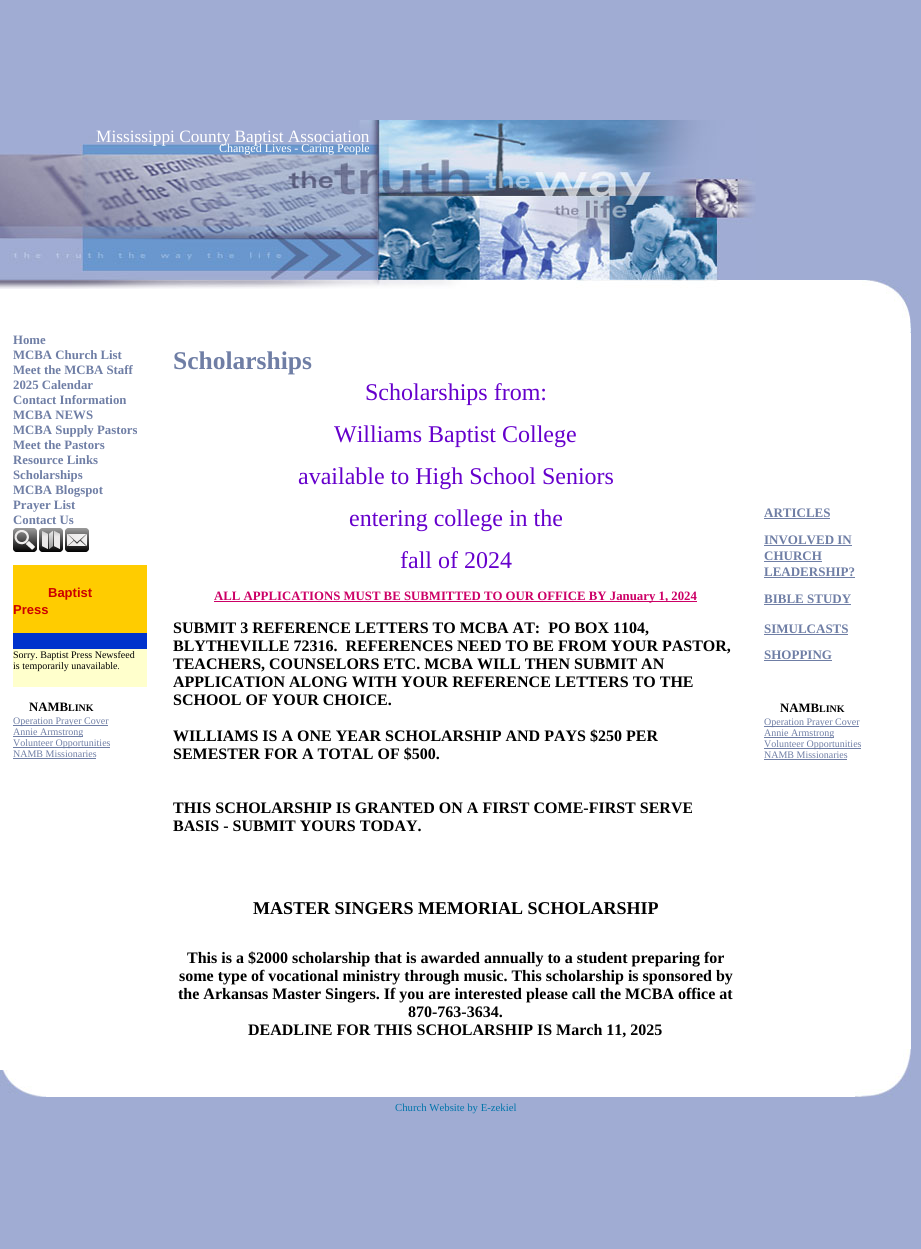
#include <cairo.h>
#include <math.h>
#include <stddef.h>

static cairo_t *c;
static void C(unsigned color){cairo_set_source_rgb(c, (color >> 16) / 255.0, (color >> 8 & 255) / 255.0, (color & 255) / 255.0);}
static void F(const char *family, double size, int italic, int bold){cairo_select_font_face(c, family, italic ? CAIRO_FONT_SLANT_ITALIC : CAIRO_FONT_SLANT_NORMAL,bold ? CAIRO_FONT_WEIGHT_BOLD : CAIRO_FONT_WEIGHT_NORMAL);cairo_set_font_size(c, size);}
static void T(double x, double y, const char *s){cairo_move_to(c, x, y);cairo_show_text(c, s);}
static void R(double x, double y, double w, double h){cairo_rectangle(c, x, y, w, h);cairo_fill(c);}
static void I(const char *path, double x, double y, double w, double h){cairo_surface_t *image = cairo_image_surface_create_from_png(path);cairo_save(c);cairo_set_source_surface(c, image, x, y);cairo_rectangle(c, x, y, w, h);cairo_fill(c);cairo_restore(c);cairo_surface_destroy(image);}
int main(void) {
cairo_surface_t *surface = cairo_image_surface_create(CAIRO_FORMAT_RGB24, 921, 1249);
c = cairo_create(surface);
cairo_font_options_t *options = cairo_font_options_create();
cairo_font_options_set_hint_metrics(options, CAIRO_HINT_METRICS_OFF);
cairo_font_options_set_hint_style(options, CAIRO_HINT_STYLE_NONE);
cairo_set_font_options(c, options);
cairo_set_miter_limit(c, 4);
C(0xa0acd3);
cairo_paint(c);
C(0xffffff);
R(0,280,911,817);
I("1.png",0,120,756,169);
F("Liberation Serif",17.3,0,0);
T(96,142,"Mississippi County Baptist Association");
F("Liberation Serif",12,0,0);
T(219,152,"Changed Lives - Caring People");
I("2.png",862,280,49,53);
I("3.png",0,1070,46,27);
F("Liberation Serif",12.8,0,1);
C(0x6f7ea5);
T(13,344,"Home");
T(13,359,"MCBA Church List");
T(13,374,"Meet the MCBA Staff");
T(13,389,"2025 Calendar");
T(13,404,"Contact Information");
T(13,419,"MCBA NEWS");
T(13,434,"MCBA Supply Pastors");
T(13,449,"Meet the Pastors");
T(13,464,"Resource Links");
T(13,479,"Scholarships");
T(13,494,"MCBA Blogspot");
T(13,509,"Prayer List");
T(13,524,"Contact Us");
I("4.png",13,528,24,24);
I("5.png",39,528,24,24);
I("6.png",65,528,24,24);
C(0xffcc00);
R(13,565,134,68);
F("Liberation Sans",13,0,1);
C(0xcc0000);
T(48,597,"Baptist");
T(13,614,"Press");
C(0x0033cc);
R(13,633,134,16);
C(0xffffcc);
R(13,649,134,38);
F("Liberation Serif",10,0,0);
C(0x000000);
T(13,658,"Sorry. Baptist Press Newsfeed");
T(13,669,"is temporarily unavailable.");
F("Liberation Serif",12.8,0,1);
T(29,711,"NAMB");
F("Liberation Serif",10,0,1);
T(68,711,"LINK");
C(0x6f7ea5);
R(13,725,95,1);
F("Liberation Serif",10,0,0);
T(13,724,"Operation Prayer Cover");
R(13,736,70,1);
T(13,735,"Annie Armstrong");
R(13,747,97,1);
T(13,746,"Volunteer Opportunities");
T(13,757,"NAMB Missionaries");
R(13,758,83,1);
F("Liberation Serif",25.5,0,1);
T(173,369,"Scholarships");
F("Liberation Serif",24,0,0);
C(0x6600cc);
T(365,400,"Scholarships from:");
T(334,442,"Williams Baptist College");
T(298,484,"available to High School Seniors");
T(349,526,"entering college in the");
T(400,568,"fall of 2024");
C(0xcc0066);
R(214,601,483,1);
F("Liberation Serif",12.8,0,1);
T(214,600,"ALL APPLICATIONS MUST BE SUBMITTED TO OUR OFFICE BY January 1, 2024");
F("Liberation Serif",16,0,1);
C(0x000000);
T(173,633,"SUBMIT 3 REFERENCE LETTERS TO MCBA AT:  PO BOX 1104,");
T(173,651,"BLYTHEVILLE 72316.  REFERENCES NEED TO BE FROM YOUR PASTOR,");
T(173,669,"TEACHERS, COUNSELORS ETC. MCBA WILL THEN SUBMIT AN");
T(173,687,"APPLICATION ALONG WITH YOUR REFERENCE LETTERS TO THE");
T(173,705,"SCHOOL OF YOUR CHOICE.");
T(173,741,"WILLIAMS IS A ONE YEAR SCHOLARSHIP AND PAYS $250 PER");
T(173,759,"SEMESTER FOR A TOTAL OF $500.");
T(173,813,"THIS SCHOLARSHIP IS GRANTED ON A FIRST COME-FIRST SERVE");
T(173,831,"BASIS - SUBMIT YOURS TODAY.");
F("Liberation Serif",18,0,1);
T(253,914,"MASTER SINGERS MEMORIAL SCHOLARSHIP");
F("Liberation Serif",16,0,1);
T(187,963,"This is a $2000 scholarship that is awarded annually to a student preparing for");
T(179,981,"some type of vocational ministry through music. This scholarship is sponsored by");
T(178,999,"the Arkansas Master Singers. If you are interested please call the MCBA office at");
T(408,1017,"870-763-3634.");
T(248,1035,"DEADLINE FOR THIS SCHOLARSHIP IS March 11, 2025");
I("7.png",855,1049,56,48);
F("Liberation Serif",13,0,1);
C(0x6f7ea5);
T(764,517,"ARTICLES");
R(764,518,66,1);
T(764,544,"INVOLVED IN");
R(764,545,88,1);
T(764,560,"CHURCH");
R(764,561,58,1);
T(764,576,"LEADERSHIP?");
R(764,577,91,1);
T(764,603,"BIBLE STUDY");
R(764,604,87,1);
T(764,633,"SIMULCASTS");
R(764,634,84,1);
T(764,659,"SHOPPING");
R(764,660,68,1);
F("Liberation Serif",12.8,0,1);
C(0x000000);
T(780,712,"NAMB");
F("Liberation Serif",10,0,1);
T(819,712,"LINK");
C(0x6f7ea5);
R(764,726,95,1);
F("Liberation Serif",10,0,0);
T(764,725,"Operation Prayer Cover");
R(764,737,70,1);
T(764,736,"Annie Armstrong");
R(764,748,97,1);
T(764,747,"Volunteer Opportunities");
T(764,758,"NAMB Missionaries");
R(764,759,83,1);
F("Liberation Serif",10.75,0,0);
C(0x0074aa);
T(395,1111,"Church Website by E-zekiel");
cairo_surface_write_to_png(surface, "o.png");
cairo_font_options_destroy(options);
cairo_destroy(c);
cairo_surface_destroy(surface);
return 0;
}
